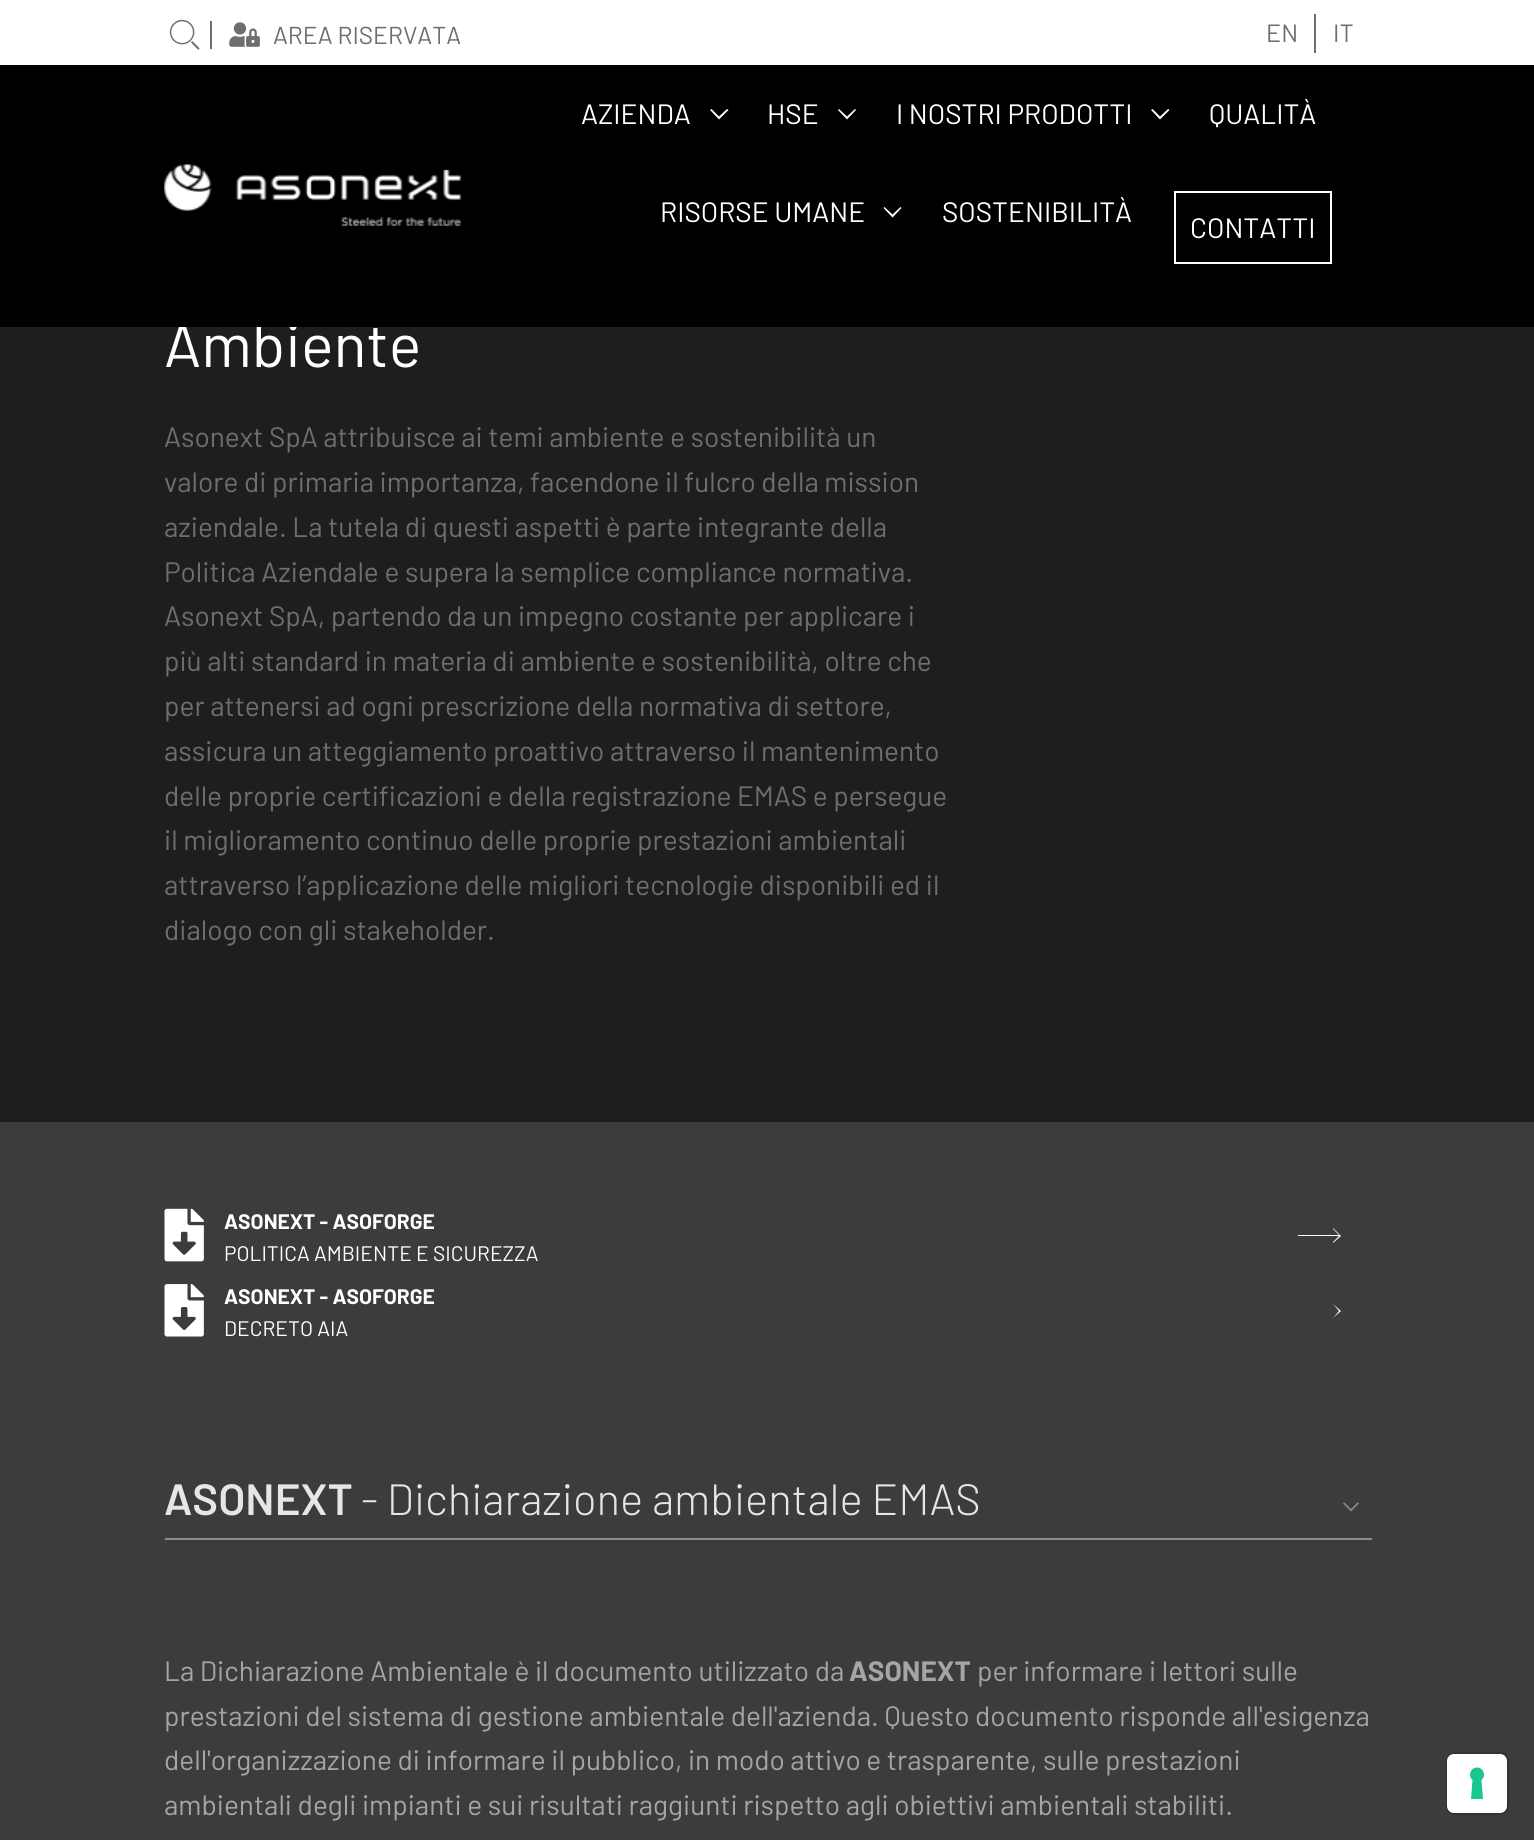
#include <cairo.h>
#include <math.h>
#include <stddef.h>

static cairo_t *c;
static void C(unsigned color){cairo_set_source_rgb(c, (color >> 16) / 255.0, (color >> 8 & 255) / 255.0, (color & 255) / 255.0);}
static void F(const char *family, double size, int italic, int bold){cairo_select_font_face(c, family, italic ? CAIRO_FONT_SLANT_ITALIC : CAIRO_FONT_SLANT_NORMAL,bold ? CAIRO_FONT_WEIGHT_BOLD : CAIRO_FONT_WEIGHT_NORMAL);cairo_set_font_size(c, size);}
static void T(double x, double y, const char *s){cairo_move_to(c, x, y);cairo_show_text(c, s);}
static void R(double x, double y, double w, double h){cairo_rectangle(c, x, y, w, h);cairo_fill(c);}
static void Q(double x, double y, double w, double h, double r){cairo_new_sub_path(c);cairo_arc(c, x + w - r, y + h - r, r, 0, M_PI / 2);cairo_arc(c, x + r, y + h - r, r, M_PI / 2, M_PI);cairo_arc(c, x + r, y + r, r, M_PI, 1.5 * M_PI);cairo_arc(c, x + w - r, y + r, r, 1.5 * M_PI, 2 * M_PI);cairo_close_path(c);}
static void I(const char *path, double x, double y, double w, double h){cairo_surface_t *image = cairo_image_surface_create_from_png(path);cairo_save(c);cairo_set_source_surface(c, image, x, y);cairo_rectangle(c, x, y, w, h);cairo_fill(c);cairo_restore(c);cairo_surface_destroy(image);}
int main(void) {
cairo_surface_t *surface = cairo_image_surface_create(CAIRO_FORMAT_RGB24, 1534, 1840);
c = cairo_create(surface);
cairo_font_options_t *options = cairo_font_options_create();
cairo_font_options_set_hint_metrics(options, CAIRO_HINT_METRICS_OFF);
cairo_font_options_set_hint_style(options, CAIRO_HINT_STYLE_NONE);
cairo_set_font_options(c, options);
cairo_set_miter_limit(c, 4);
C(0x1e1e1e);
cairo_paint(c);
C(0xffffff);
R(0,0,1534,65);
I("1.png",169,19,31,31);
C(0x6e6e6e);
R(210,21,2,28);
I("2.png",229,22,31,25);
F("Barlow",24.5,0,0);
T(273,44,"AREA RISERVATA");
F("Barlow",25,0,0);
T(1266,42,"EN");
R(1314,14,2,39);
T(1333,42,"IT");
F("Barlow",61.25,0,0);
C(0xffffff);
T(164,367,"Ambiente");
C(0x000000);
R(0,65,1534,262);
I("3.png",164,164,298,62);
F("Barlow",28,0,0);
C(0xffffff);
T(581,124,"AZIENDA");
cairo_new_path(c);
cairo_move_to(c,719,119.5);
cairo_line_to(c,710,110);
cairo_line_to(c,711.5,109);
cairo_line_to(c,719,116.5);
cairo_line_to(c,727,109);
cairo_line_to(c,728.5,110);
cairo_close_path(c);
cairo_fill(c);
T(767,124,"HSE");
cairo_new_path(c);
cairo_move_to(c,847,119.5);
cairo_line_to(c,838,110);
cairo_line_to(c,839,109);
cairo_line_to(c,847,116.5);
cairo_line_to(c,855,109);
cairo_line_to(c,856,110);
cairo_close_path(c);
cairo_fill(c);
T(896,124,"I NOSTRI PRODOTTI");
cairo_new_path(c);
cairo_move_to(c,1160,119.5);
cairo_line_to(c,1151,110);
cairo_line_to(c,1152.5,109);
cairo_line_to(c,1160,116.5);
cairo_line_to(c,1168,109);
cairo_line_to(c,1169.5,110);
cairo_close_path(c);
cairo_fill(c);
T(1209,124,"QUALITÀ");
T(660,222,"RISORSE UMANE");
cairo_new_path(c);
cairo_move_to(c,892.5,217.5);
cairo_line_to(c,883.5,208);
cairo_line_to(c,884.5,207);
cairo_line_to(c,892.5,214.5);
cairo_line_to(c,900.5,207);
cairo_line_to(c,901.5,208);
cairo_close_path(c);
cairo_fill(c);
T(942,222,"SOSTENIBILITÀ");
cairo_rectangle(c,1175,192,156,71);
cairo_stroke(c);
T(1190,238,"CONTATTI");
C(0x6e6e6e);
T(164,447,"Asonext SpA attribuisce ai temi ambiente e sostenibilità un");
T(164,492,"valore di primaria importanza, facendone il fulcro della mission");
T(164,537,"aziendale. La tutela di questi aspetti è parte integrante della");
T(164,582,"Politica Aziendale e supera la semplice compliance normativa.");
T(164,626,"Asonext SpA, partendo da un impegno costante per applicare i");
T(164,671,"più alti standard in materia di ambiente e sostenibilità, oltre che");
T(164,716,"per attenersi ad ogni prescrizione della normativa di settore,");
T(164,761,"assicura un atteggiamento proattivo attraverso il mantenimento");
T(164,806,"delle proprie certificazioni e della registrazione EMAS e persegue");
T(164,850,"il miglioramento continuo delle proprie prestazioni ambientali");
T(164,895,"attraverso l’applicazione delle migliori tecnologie disponibili ed il");
T(164,940,"dialogo con gli stakeholder.");
C(0x3c3c3c);
R(0,1122,1534,718);
I("4.png",164,1208,40,54);
F("Barlow",21,0,1);
C(0xffffff);
T(224,1229,"ASONEXT - ASOFORGE");
F("Barlow",21,0,0);
T(224,1261,"POLITICA AMBIENTE E SICUREZZA");
cairo_new_path(c);
cairo_move_to(c,1333,1243);
cairo_line_to(c,1333,1242);
cairo_line_to(c,1339,1236);
cairo_line_to(c,1298,1236);
cairo_line_to(c,1298,1235);
cairo_line_to(c,1339,1235);
cairo_line_to(c,1333,1229);
cairo_line_to(c,1333,1228);
cairo_line_to(c,1341,1236);
cairo_close_path(c);
cairo_fill(c);
I("5.png",164,1284,40,53);
F("Barlow",21,0,1);
T(224,1304,"ASONEXT - ASOFORGE");
F("Barlow",21,0,0);
T(224,1336,"DECRETO AIA");
cairo_new_path(c);
cairo_move_to(c,1333,1318);
cairo_line_to(c,1339,1311);
cairo_line_to(c,1298,1311);
cairo_line_to(c,1339,1311);
cairo_line_to(c,1333,1304);
cairo_line_to(c,1341,1311);
cairo_close_path(c);
cairo_fill(c);
C(0x8c8c8c);
R(165,1538,1207,2);
F("Barlow SemiBold",43.75,0,0);
C(0xe6e6e6);
T(164,1515,"ASONEXT");
F("Barlow Light",43.75,0,0);
T(361,1515,"- Dichiarazione ambientale EMAS");
I("6.png",1343,1502,16,10);
F("Barlow",28,0,0);
C(0xa5a5a5);
T(164,1681,"La Dichiarazione Ambientale è il documento utilizzato da");
F("Barlow",28,0,1);
T(849,1681,"ASONEXT");
F("Barlow",28,0,0);
T(977,1681,"per informare i lettori sulle");
T(164,1726,"prestazioni del sistema di gestione ambientale dell'azienda. Questo documento risponde all'esigenza");
T(164,1770,"dell'organizzazione di informare il pubblico, in modo attivo e trasparente, sulle prestazioni");
T(164,1815,"ambientali degli impianti e sui risultati raggiunti rispetto agli obiettivi ambientali stabiliti.");
Q(1447,1753,61,61,8);
C(0x333333);
cairo_stroke(c);
C(0xffffff);
Q(1447,1754,60,59,7);
cairo_fill(c);
C(0x1cc691);
cairo_set_fill_rule(c,CAIRO_FILL_RULE_EVEN_ODD);
cairo_new_path(c);
cairo_move_to(c,1477,1767.5);
cairo_curve_to(c,1483.5,1767.5,1486.5,1775.5,1481.5,1780);
cairo_line_to(c,1483,1799);
cairo_line_to(c,1471,1799);
cairo_line_to(c,1472.5,1780);
cairo_curve_to(c,1467.5,1775.5,1470.5,1767.5,1477,1767.5);
cairo_close_path(c);
cairo_fill(c);
cairo_surface_write_to_png(surface, "o.png");
cairo_font_options_destroy(options);
cairo_destroy(c);
cairo_surface_destroy(surface);
return 0;
}
